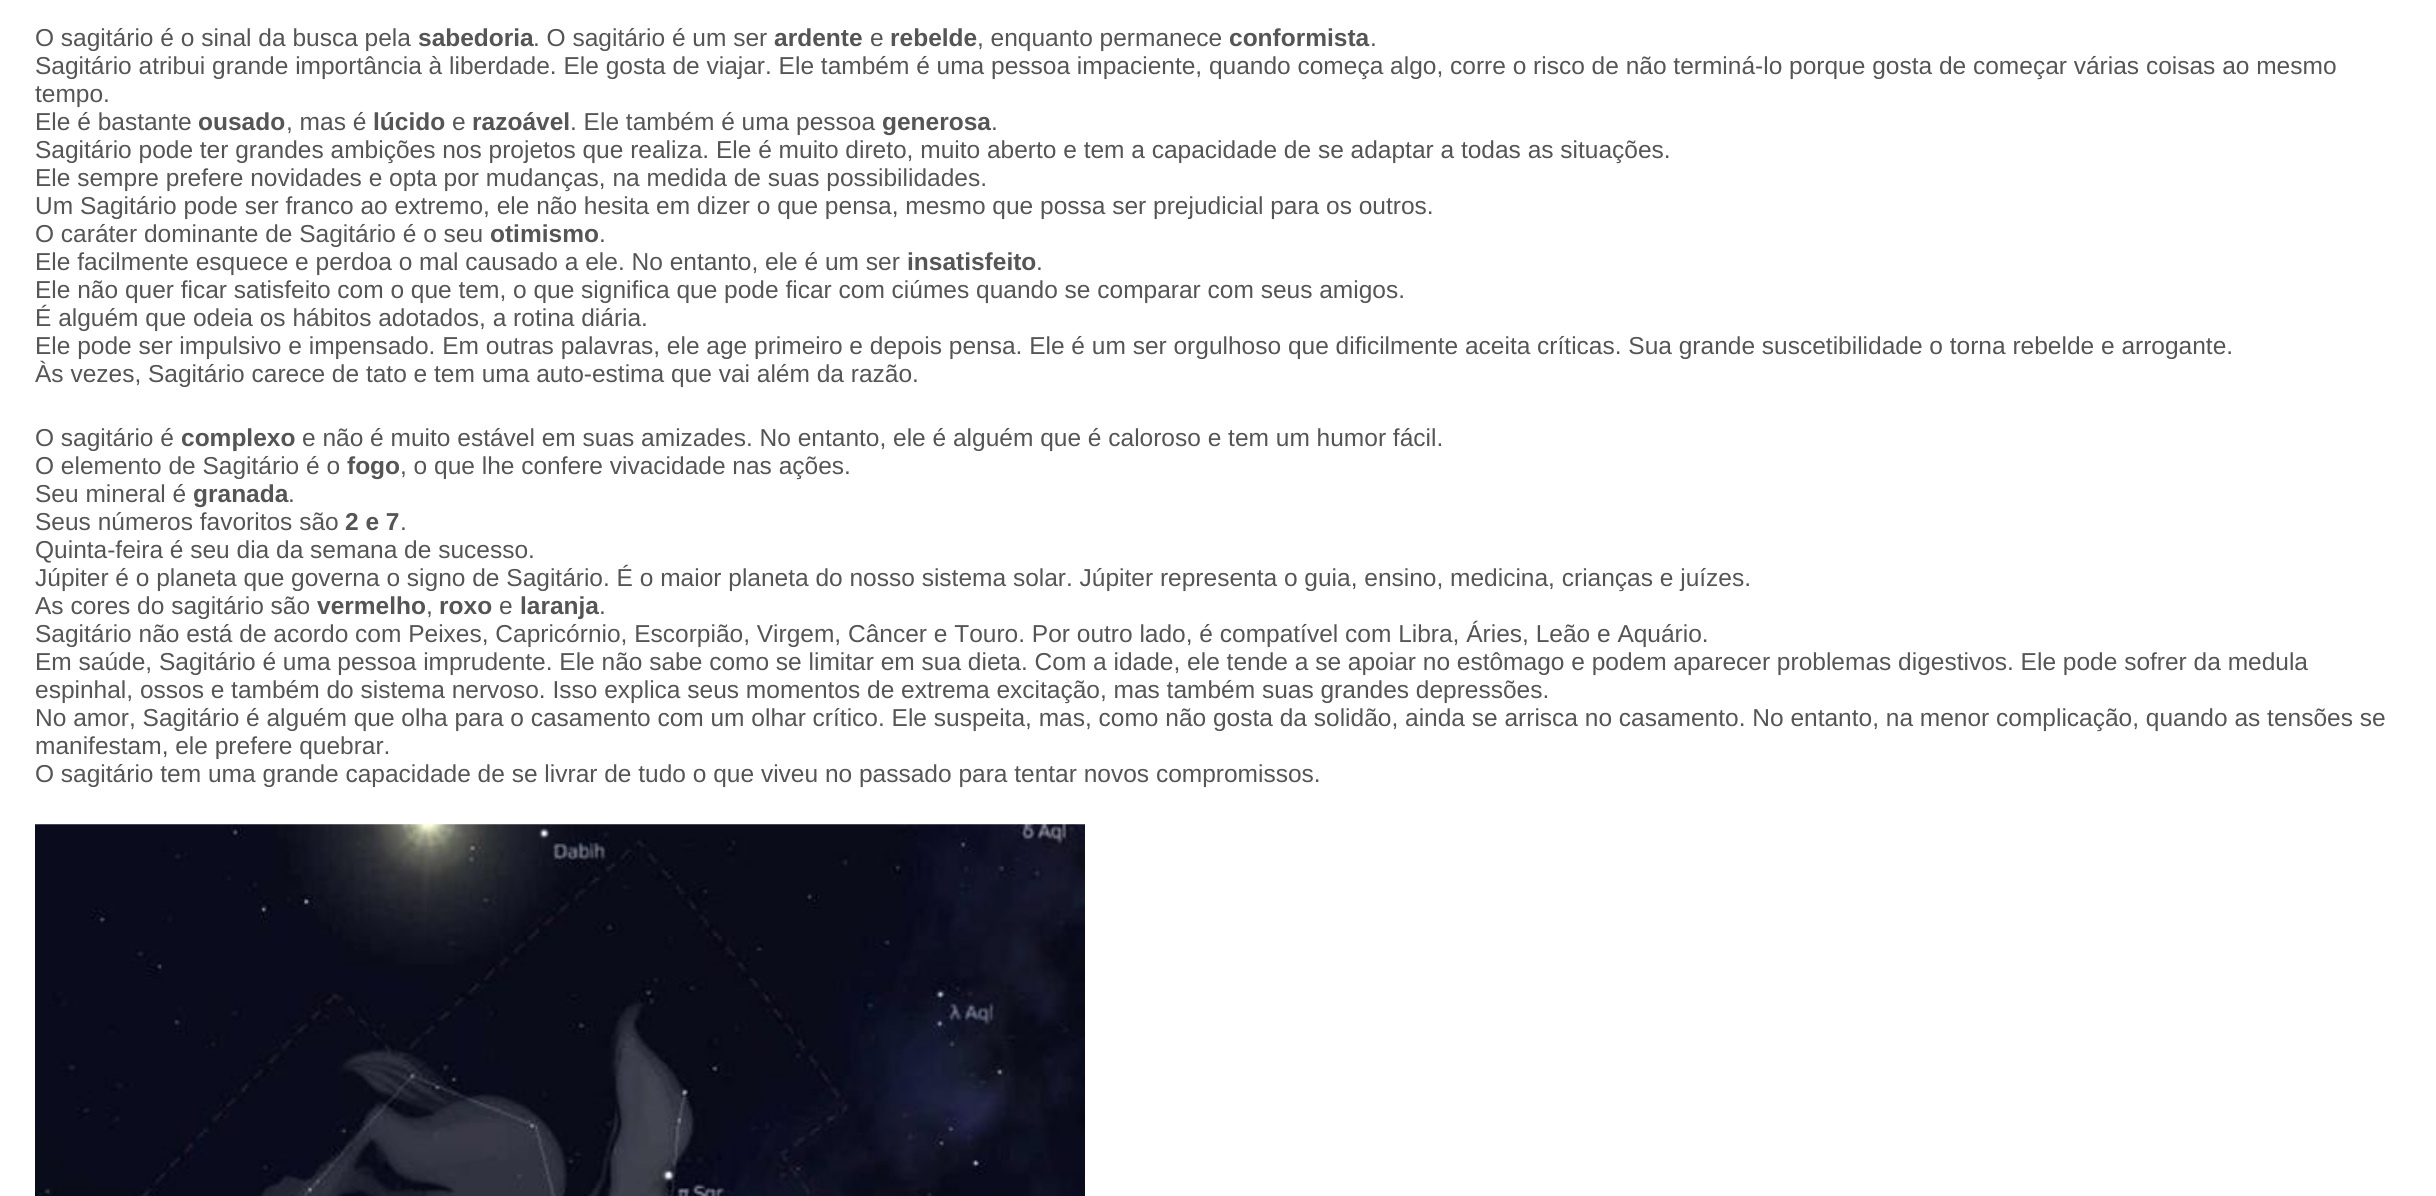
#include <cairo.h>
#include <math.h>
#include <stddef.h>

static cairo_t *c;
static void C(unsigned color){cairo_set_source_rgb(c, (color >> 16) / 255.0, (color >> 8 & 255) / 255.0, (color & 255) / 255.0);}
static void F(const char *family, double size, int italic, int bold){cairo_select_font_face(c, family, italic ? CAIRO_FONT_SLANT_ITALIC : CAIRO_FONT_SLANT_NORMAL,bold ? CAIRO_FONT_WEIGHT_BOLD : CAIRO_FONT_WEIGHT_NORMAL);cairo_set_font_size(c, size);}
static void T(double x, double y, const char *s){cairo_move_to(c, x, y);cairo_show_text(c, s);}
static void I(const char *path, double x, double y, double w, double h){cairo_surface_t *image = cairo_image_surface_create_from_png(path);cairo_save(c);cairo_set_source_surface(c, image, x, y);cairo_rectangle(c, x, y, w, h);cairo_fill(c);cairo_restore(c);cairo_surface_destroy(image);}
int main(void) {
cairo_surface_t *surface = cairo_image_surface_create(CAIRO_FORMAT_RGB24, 2436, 1196);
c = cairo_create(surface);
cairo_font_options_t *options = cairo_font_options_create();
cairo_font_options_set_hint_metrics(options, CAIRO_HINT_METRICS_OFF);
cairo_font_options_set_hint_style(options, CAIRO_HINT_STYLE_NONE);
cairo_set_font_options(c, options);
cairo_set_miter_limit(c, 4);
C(0xffffff);
cairo_paint(c);
F("Liberation Sans",24.5,0,0);
C(0x555555);
T(35,46,"O sagitário é o sinal da busca pela");
F("Liberation Sans",24.5,0,1);
T(418,46,"sabedoria");
F("Liberation Sans",24.5,0,0);
T(533,46,". O sagitário é um ser");
F("Liberation Sans",24.5,0,1);
T(774,46,"ardente");
F("Liberation Sans",24.5,0,0);
T(870,46,"e");
F("Liberation Sans",24.5,0,1);
T(890,46,"rebelde");
F("Liberation Sans",24.5,0,0);
T(977,46,", enquanto permanece");
F("Liberation Sans",24.5,0,1);
T(1229,46,"conformista");
F("Liberation Sans",24.5,0,0);
T(1370,46,".");
T(35,74,"Sagitário atribui grande importância à liberdade. Ele gosta de viajar. Ele também é uma pessoa impaciente, quando começa algo, corre o risco de não terminá-lo porque gosta de começar várias coisas ao mesmo");
T(35,102,"tempo.");
T(35,130,"Ele é bastante");
F("Liberation Sans",24.5,0,1);
T(198,130,"ousado");
F("Liberation Sans",24.5,0,0);
T(286,130,", mas é");
F("Liberation Sans",24.5,0,1);
T(373,130,"lúcido");
F("Liberation Sans",24.5,0,0);
T(452,130,"e");
F("Liberation Sans",24.5,0,1);
T(472,130,"razoável");
F("Liberation Sans",24.5,0,0);
T(570,130,". Ele também é uma pessoa");
F("Liberation Sans",24.5,0,1);
T(882,130,"generosa");
F("Liberation Sans",24.5,0,0);
T(991,130,".");
T(35,158,"Sagitário pode ter grandes ambições nos projetos que realiza. Ele é muito direto, muito aberto e tem a capacidade de se adaptar a todas as situações.");
T(35,186,"Ele sempre prefere novidades e opta por mudanças, na medida de suas possibilidades.");
T(35,214,"Um Sagitário pode ser franco ao extremo, ele não hesita em dizer o que pensa, mesmo que possa ser prejudicial para os outros.");
T(35,242,"O caráter dominante de Sagitário é o seu");
F("Liberation Sans",24.5,0,1);
T(490,242,"otimismo");
F("Liberation Sans",24.5,0,0);
T(599,242,".");
T(35,270,"Ele facilmente esquece e perdoa o mal causado a ele. No entanto, ele é um ser");
F("Liberation Sans",24.5,0,1);
T(907,270,"insatisfeito");
F("Liberation Sans",24.5,0,0);
T(1036,270,".");
T(35,298,"Ele não quer ficar satisfeito com o que tem, o que significa que pode ficar com ciúmes quando se comparar com seus amigos.");
T(35,326,"É alguém que odeia os hábitos adotados, a rotina diária.");
T(35,354,"Ele pode ser impulsivo e impensado. Em outras palavras, ele age primeiro e depois pensa. Ele é um ser orgulhoso que dificilmente aceita críticas. Sua grande suscetibilidade o torna rebelde e arrogante.");
T(35,382,"Às vezes, Sagitário carece de tato e tem uma auto-estima que vai além da razão.");
T(35,446,"O sagitário é");
F("Liberation Sans",24.5,0,1);
T(181,446,"complexo");
F("Liberation Sans",24.5,0,0);
T(302,446,"e não é muito estável em suas amizades. No entanto, ele é alguém que é caloroso e tem um humor fácil.");
T(35,474,"O elemento de Sagitário é o");
F("Liberation Sans",24.5,0,1);
T(347,474,"fogo");
F("Liberation Sans",24.5,0,0);
T(400,474,", o que lhe confere vivacidade nas ações.");
T(35,502,"Seu mineral é");
F("Liberation Sans",24.5,0,1);
T(193,502,"granada");
F("Liberation Sans",24.5,0,0);
T(288,502,".");
T(35,530,"Seus números favoritos são");
F("Liberation Sans",24.5,0,1);
T(345,530,"2 e 7");
F("Liberation Sans",24.5,0,0);
T(400,530,".");
T(35,558,"Quinta-feira é seu dia da semana de sucesso.");
T(35,586,"Júpiter é o planeta que governa o signo de Sagitário. É o maior planeta do nosso sistema solar. Júpiter representa o guia, ensino, medicina, crianças e juízes.");
T(35,614,"As cores do sagitário são");
F("Liberation Sans",24.5,0,1);
T(317,614,"vermelho");
F("Liberation Sans",24.5,0,0);
T(426,614,",");
F("Liberation Sans",24.5,0,1);
T(439,614,"roxo");
F("Liberation Sans",24.5,0,0);
T(499,614,"e");
F("Liberation Sans",24.5,0,1);
T(520,614,"laranja");
F("Liberation Sans",24.5,0,0);
T(599,614,".");
T(35,642,"Sagitário não está de acordo com Peixes, Capricórnio, Escorpião, Virgem, Câncer e Touro. Por outro lado, é compatível com Libra, Áries, Leão e Aquário.");
T(35,670,"Em saúde, Sagitário é uma pessoa imprudente. Ele não sabe como se limitar em sua dieta. Com a idade, ele tende a se apoiar no estômago e podem aparecer problemas digestivos. Ele pode sofrer da medula");
T(35,698,"espinhal, ossos e também do sistema nervoso. Isso explica seus momentos de extrema excitação, mas também suas grandes depressões.");
T(35,726,"No amor, Sagitário é alguém que olha para o casamento com um olhar crítico. Ele suspeita, mas, como não gosta da solidão, ainda se arrisca no casamento. No entanto, na menor complicação, quando as tensões se");
T(35,754,"manifestam, ele prefere quebrar.");
T(35,782,"O sagitário tem uma grande capacidade de se livrar de tudo o que viveu no passado para tentar novos compromissos.");
I("1.png",35,824,1050,372);
cairo_surface_write_to_png(surface, "o.png");
cairo_font_options_destroy(options);
cairo_destroy(c);
cairo_surface_destroy(surface);
return 0;
}
